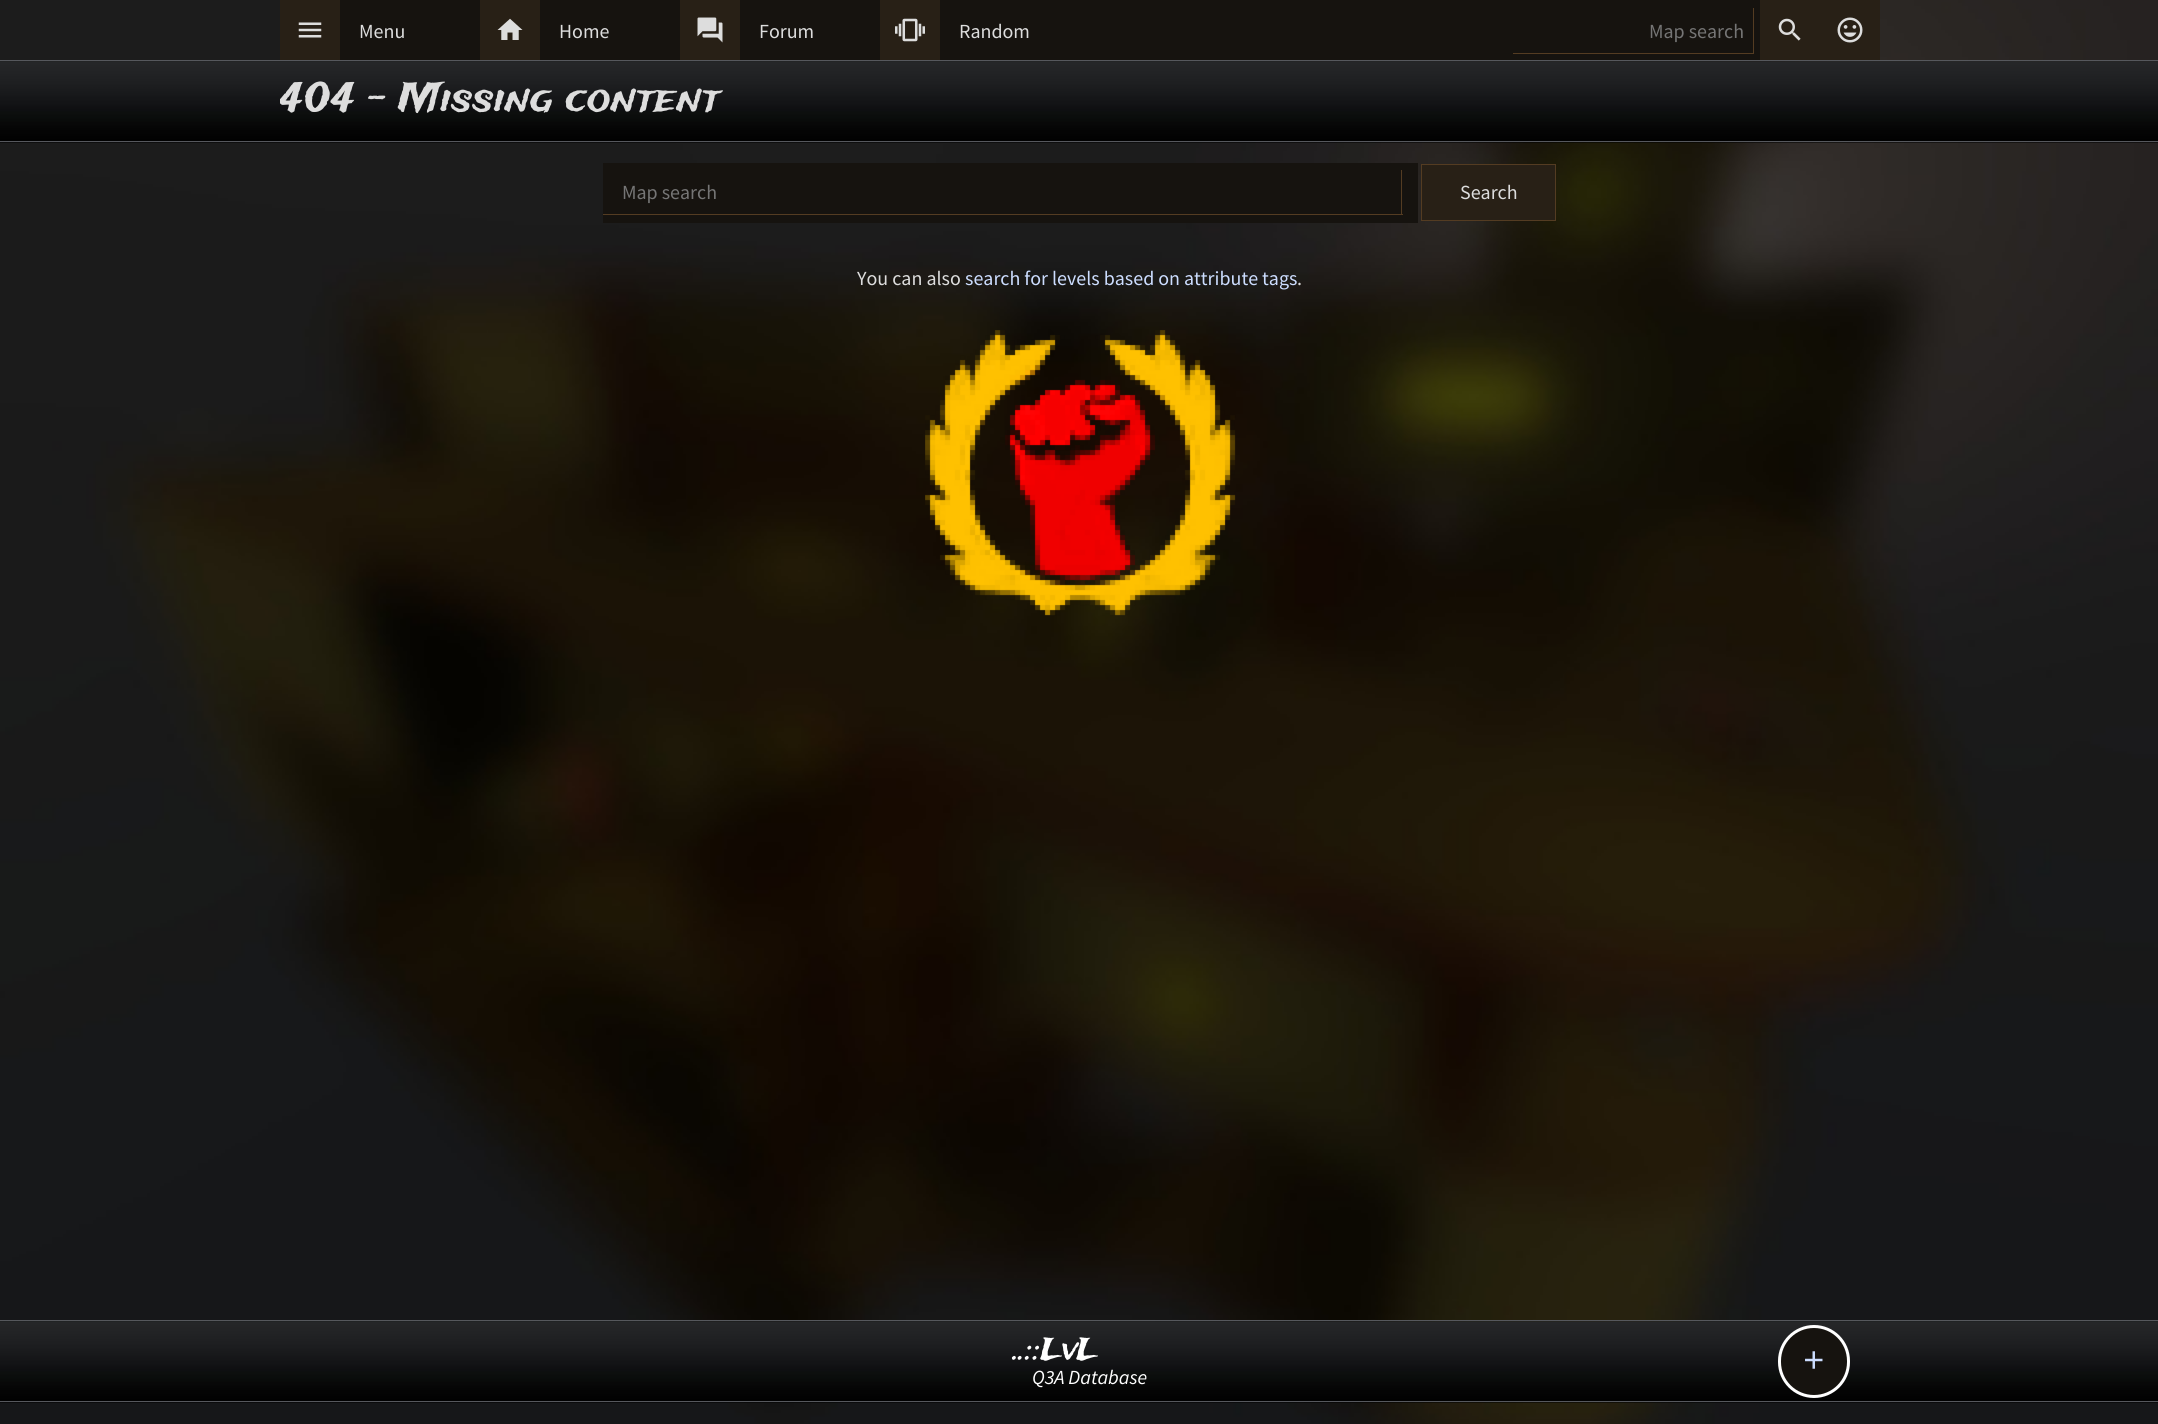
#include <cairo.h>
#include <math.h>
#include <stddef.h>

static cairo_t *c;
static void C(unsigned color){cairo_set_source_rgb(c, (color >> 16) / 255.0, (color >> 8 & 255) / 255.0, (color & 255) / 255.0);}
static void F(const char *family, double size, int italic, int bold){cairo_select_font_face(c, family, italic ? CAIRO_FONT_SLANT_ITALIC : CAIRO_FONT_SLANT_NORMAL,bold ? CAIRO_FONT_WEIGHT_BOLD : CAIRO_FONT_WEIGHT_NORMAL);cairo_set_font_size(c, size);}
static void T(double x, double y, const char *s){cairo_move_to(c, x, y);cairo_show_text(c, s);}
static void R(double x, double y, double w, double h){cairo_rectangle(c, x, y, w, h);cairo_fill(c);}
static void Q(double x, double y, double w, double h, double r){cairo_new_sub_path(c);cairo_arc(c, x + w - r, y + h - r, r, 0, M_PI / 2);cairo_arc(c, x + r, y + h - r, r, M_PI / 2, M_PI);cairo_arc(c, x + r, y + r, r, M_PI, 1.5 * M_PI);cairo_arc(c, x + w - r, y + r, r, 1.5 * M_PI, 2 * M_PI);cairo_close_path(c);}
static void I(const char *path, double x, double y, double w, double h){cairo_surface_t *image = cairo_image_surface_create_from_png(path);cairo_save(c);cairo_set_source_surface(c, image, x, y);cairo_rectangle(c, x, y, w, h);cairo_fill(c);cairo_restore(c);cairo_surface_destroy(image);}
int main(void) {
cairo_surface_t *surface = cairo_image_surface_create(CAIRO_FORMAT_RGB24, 2158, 1424);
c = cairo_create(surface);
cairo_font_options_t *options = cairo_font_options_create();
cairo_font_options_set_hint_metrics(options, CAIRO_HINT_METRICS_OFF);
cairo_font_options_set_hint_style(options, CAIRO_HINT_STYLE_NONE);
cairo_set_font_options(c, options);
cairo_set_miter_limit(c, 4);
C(0xffffff);
cairo_paint(c);
I("1.png",0,0,2158,1424);
C(0x16130f);
R(340,0,1420,60);
C(0x282016);
R(280,0,60,60);
I("2.png",298,22,24,16);
F("Source Sans Pro",20,0,0);
C(0xdddddd);
T(359,38,"Menu");
C(0x282016);
R(480,0,60,60);
I("3.png",497,18,26,22);
C(0xdddddd);
T(559,38,"Home");
C(0x282016);
R(680,0,60,60);
I("4.png",697,17,26,26);
C(0xdddddd);
T(759,38,"Forum");
C(0x282016);
R(880,0,60,60);
I("5.png",895,18,30,24);
C(0xdddddd);
T(959,38,"Random");
C(0x543c22);
R(1753,8,1,46);
R(1513,53,241,1);
C(0x757575);
T(1649,38,"Map search");
C(0x282016);
R(1760,0,120,60);
I("6.png",1778,18,23,23);
I("7.png",1837,17,26,26);
I("8.png",0,61,2158,82);
C(0x56585d);
R(0,60,2158,1);
R(0,141,2158,1);
cairo_save(c);
cairo_rectangle(c,280,61,1600,80);
cairo_clip(c);
F("Trade Winds",40,0,0);
C(0xdddddd);
T(279,111,"404 - Missing content");
cairo_restore(c);
C(0x16130f);
R(603,163,815,60);
C(0x543c22);
R(1401,170,1,45);
R(603,214,800,1);
C(0x757575);
T(622,199,"Map search");
C(0x282016);
cairo_rectangle(c,1421.5,164.5,134,56);
cairo_fill_preserve(c);
C(0x543c22);
cairo_set_line_width(c,1);
cairo_stroke(c);
C(0xdddddd);
T(1460,199,"Search");
T(857,285,"You can also");
C(0xccddff);
T(965,285,"search for levels based on attribute tags");
C(0xdddddd);
T(1297,285,".");
I("9.png",925,330,311,286);
I("11.png",0,1321,2158,82);
C(0x16130f);
Q(1779.5,1326.5,69,70,34.5);
cairo_fill_preserve(c);
C(0xffffff);
cairo_set_line_width(c,3);
cairo_stroke(c);
I("10.png",1805,1351,18,18);
C(0x56585d);
R(0,1320,2158,1);
R(0,1401,2158,1);
F("Trade Winds",30,0,0);
C(0xffffff);
T(1014,1359,"..::LvL");
F("Source Sans Pro",20,1,0);
T(1032,1384,"Q3A Database");
cairo_surface_write_to_png(surface, "o.png");
cairo_font_options_destroy(options);
cairo_destroy(c);
cairo_surface_destroy(surface);
return 0;
}
